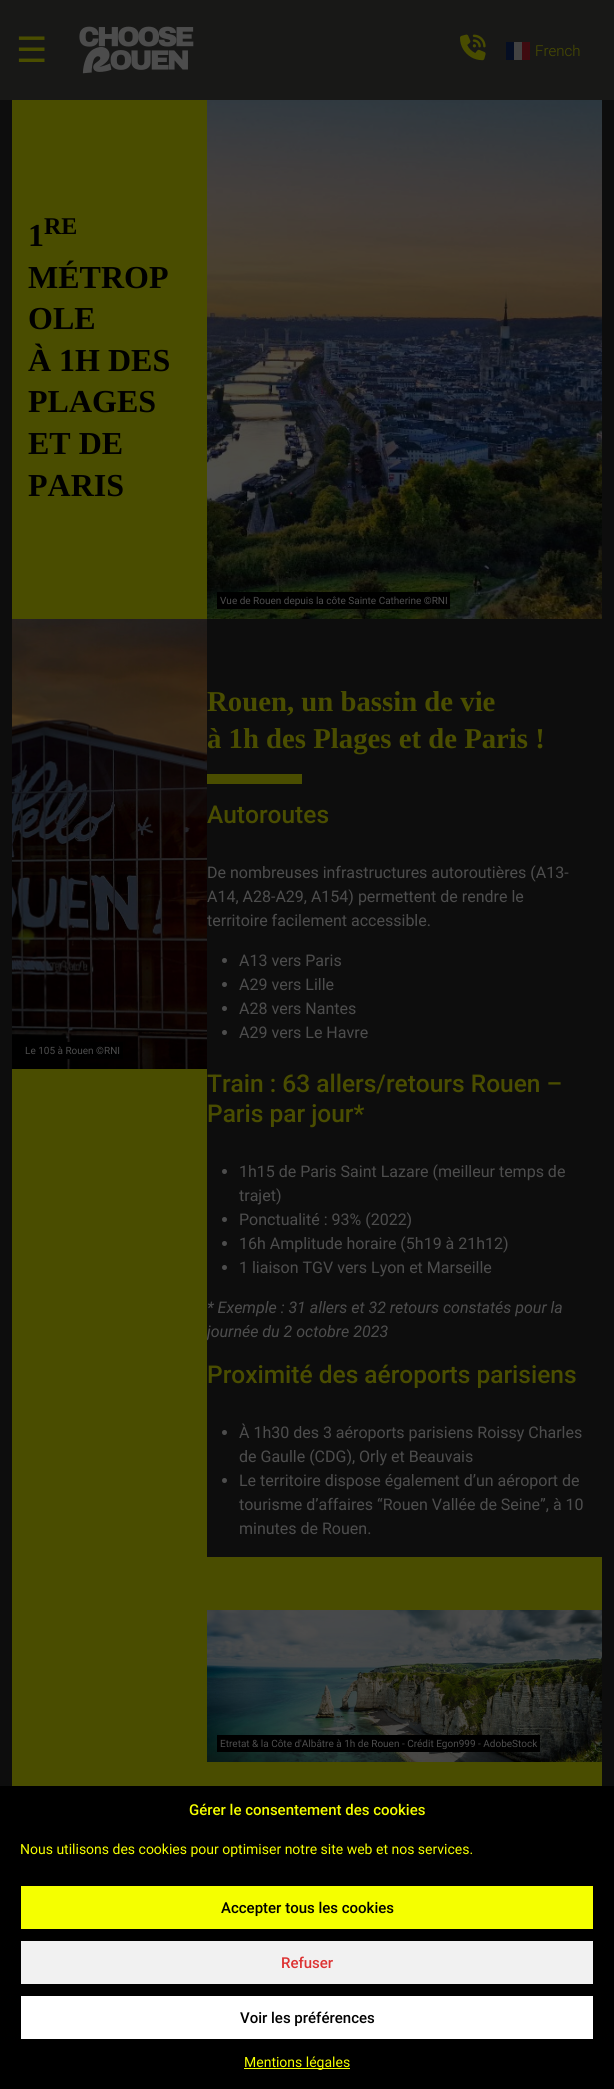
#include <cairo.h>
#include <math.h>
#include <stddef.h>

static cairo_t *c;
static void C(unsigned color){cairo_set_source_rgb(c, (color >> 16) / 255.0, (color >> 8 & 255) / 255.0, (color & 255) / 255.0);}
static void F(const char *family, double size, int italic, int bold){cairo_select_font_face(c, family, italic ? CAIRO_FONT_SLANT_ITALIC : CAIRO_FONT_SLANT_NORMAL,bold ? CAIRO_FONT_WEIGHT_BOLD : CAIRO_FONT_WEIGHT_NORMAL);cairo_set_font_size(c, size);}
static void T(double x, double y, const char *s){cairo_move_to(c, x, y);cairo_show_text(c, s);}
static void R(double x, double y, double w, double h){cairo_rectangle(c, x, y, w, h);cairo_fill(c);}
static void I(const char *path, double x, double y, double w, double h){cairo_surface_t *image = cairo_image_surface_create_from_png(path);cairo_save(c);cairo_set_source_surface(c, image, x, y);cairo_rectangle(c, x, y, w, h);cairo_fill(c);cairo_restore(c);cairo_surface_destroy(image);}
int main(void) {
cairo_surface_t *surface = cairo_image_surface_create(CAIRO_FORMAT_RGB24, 614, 2089);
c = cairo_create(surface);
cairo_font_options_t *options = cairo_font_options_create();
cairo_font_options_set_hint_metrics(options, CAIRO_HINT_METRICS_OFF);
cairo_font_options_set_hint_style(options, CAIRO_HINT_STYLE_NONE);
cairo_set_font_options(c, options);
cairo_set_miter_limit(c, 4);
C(0x0d0d0d);
cairo_paint(c);
C(0x181817);
R(0,0,614,100);
F("DejaVu Sans",35,0,0);
C(0x4a4d00);
T(16,62,"☰");
I("1.png",79,26,115,48);
I("2.png",460,34,26,27);
F("Roboto Light",15,0,0);
T(535,56,"French");
C(0x424242);
R(514,42,8,18);
C(0x050e23);
R(506,42,8,18);
C(0x3f0b10);
R(522,42,8,18);
C(0x4a4d00);
R(12,100,195,519);
F("Liberation Serif",32,0,1);
C(0x000000);
T(28,246,"1");
F("Liberation Serif",24,0,1);
T(44,234,"RE");
F("Liberation Serif",32,0,1);
T(28,288,"MÉTROP");
T(28,329,"OLE");
T(28,371,"À 1H DES");
T(28,412,"PLAGES");
T(28,454,"ET DE");
T(28,496,"PARIS");
I("3.png",207,100,395,519);
R(217,592,233,17);
F("Roboto",10,0,0);
C(0x4d4d4d);
T(220,604,"Vue de Rouen depuis la côte Sainte Catherine ©RNI");
F("Liberation Serif",28.75,0,1);
C(0x4a4d00);
T(207,711,"Rouen, un bassin de vie");
T(207,748,"à 1h des Plages et de Paris !");
R(207,774,95,10);
F("Roboto Medium",24.5,0,0);
T(207,823,"Autoroutes");
F("Roboto",16,0,0);
C(0x4d4d4d);
T(207,878,"De nombreuses infrastructures autoroutières (A13-");
T(207,902,"A14, A28-A29, A154) permettent de rendre le");
T(207,926,"territoire facilement accessible.");
cairo_new_path(c);
cairo_arc(c,224.5,960.5,2.5,0,2 * M_PI);
cairo_fill(c);
T(239,966,"A13 vers Paris");
cairo_new_path(c);
cairo_arc(c,224.5,984.5,2.5,0,2 * M_PI);
cairo_fill(c);
T(239,990,"A29 vers Lille");
cairo_new_path(c);
cairo_arc(c,224.5,1008.5,2.5,0,2 * M_PI);
cairo_fill(c);
T(239,1014,"A28 vers Nantes");
cairo_new_path(c);
cairo_arc(c,224.5,1032.5,2.5,0,2 * M_PI);
cairo_fill(c);
T(239,1038,"A29 vers Le Havre");
I("4.png",12,619,195,450);
C(0x000000);
R(67,1042,56,17);
F("Roboto",10,0,0);
C(0x4d4d4d);
T(25,1054,"Le 105 à Rouen ©RNI");
F("Roboto",16,1,0);
T(207,1337,"journée du 2 octobre 2023");
C(0x4a4d00);
R(12,1069,195,488);
F("Roboto Medium",24.5,0,0);
T(207,1092,"Train : 63 allers/retours Rouen –");
T(207,1122,"Paris par jour*");
C(0x4d4d4d);
cairo_new_path(c);
cairo_arc(c,224.5,1171.5,2.5,0,2 * M_PI);
cairo_fill(c);
F("Roboto",16,0,0);
T(239,1177,"1h15 de Paris Saint Lazare (meilleur temps de");
T(239,1201,"trajet)");
cairo_new_path(c);
cairo_arc(c,224.5,1219.5,2.5,0,2 * M_PI);
cairo_fill(c);
T(239,1225,"Ponctualité : 93% (2022)");
cairo_new_path(c);
cairo_arc(c,224.5,1243.5,2.5,0,2 * M_PI);
cairo_fill(c);
T(239,1249,"16h Amplitude horaire (5h19 à 21h12)");
cairo_new_path(c);
cairo_arc(c,224.5,1267.5,2.5,0,2 * M_PI);
cairo_fill(c);
T(239,1273,"1 liaison TGV vers Lyon et Marseille");
F("Roboto",16,1,0);
T(207,1313,"* Exemple : 31 allers et 32 retours constatés pour la");
F("Roboto Medium",24.5,0,0);
C(0x4a4d00);
T(207,1383,"Proximité des aéroports parisiens");
C(0x4d4d4d);
cairo_new_path(c);
cairo_arc(c,224.5,1432.5,2.5,0,2 * M_PI);
cairo_fill(c);
F("Roboto",16,0,0);
T(239,1438,"À 1h30 des 3 aéroports parisiens Roissy Charles");
T(239,1462,"de Gaulle (CDG), Orly et Beauvais");
cairo_new_path(c);
cairo_arc(c,224.5,1480.5,2.5,0,2 * M_PI);
cairo_fill(c);
T(239,1486,"Le territoire dispose également d’un aéroport de");
T(239,1510,"tourisme d’affaires “Rouen Vallée de Seine”, à 10");
T(239,1534,"minutes de Rouen.");
C(0x4a4d00);
R(12,1557,590,229);
I("5.png",207,1610,395,152);
C(0x000000);
R(217,1735,323,17);
F("Roboto",10,0,0);
C(0x4d4d4d);
T(220,1747,"Etretat & la Côte d'Albâtre à 1h de Rouen - Crédit Egon999 - AdobeStock");
C(0x000000);
R(0,1786,614,303);
F("Roboto Medium",15,0,0);
C(0xf5ff00);
T(189,1815,"Gérer le consentement des cookies");
F("Roboto",14,0,0);
T(20,1854,"Nous utilisons des cookies pour optimiser notre site web et nos services.");
R(21,1886,572,43);
F("Roboto Medium",15,0,0);
C(0x000000);
T(221,1913,"Accepter tous les cookies");
C(0xf1f1f1);
R(21,1941,572,43);
C(0xdd3333);
T(281,1968,"Refuser");
C(0xffffff);
R(21,1996,572,43);
C(0x000000);
T(240,2023,"Voir les préférences");
C(0xf5ff00);
R(244,2068,106,1);
F("Roboto",14,0,0);
T(244,2067,"Mentions légales");
cairo_surface_write_to_png(surface, "o.png");
cairo_font_options_destroy(options);
cairo_destroy(c);
cairo_surface_destroy(surface);
return 0;
}
